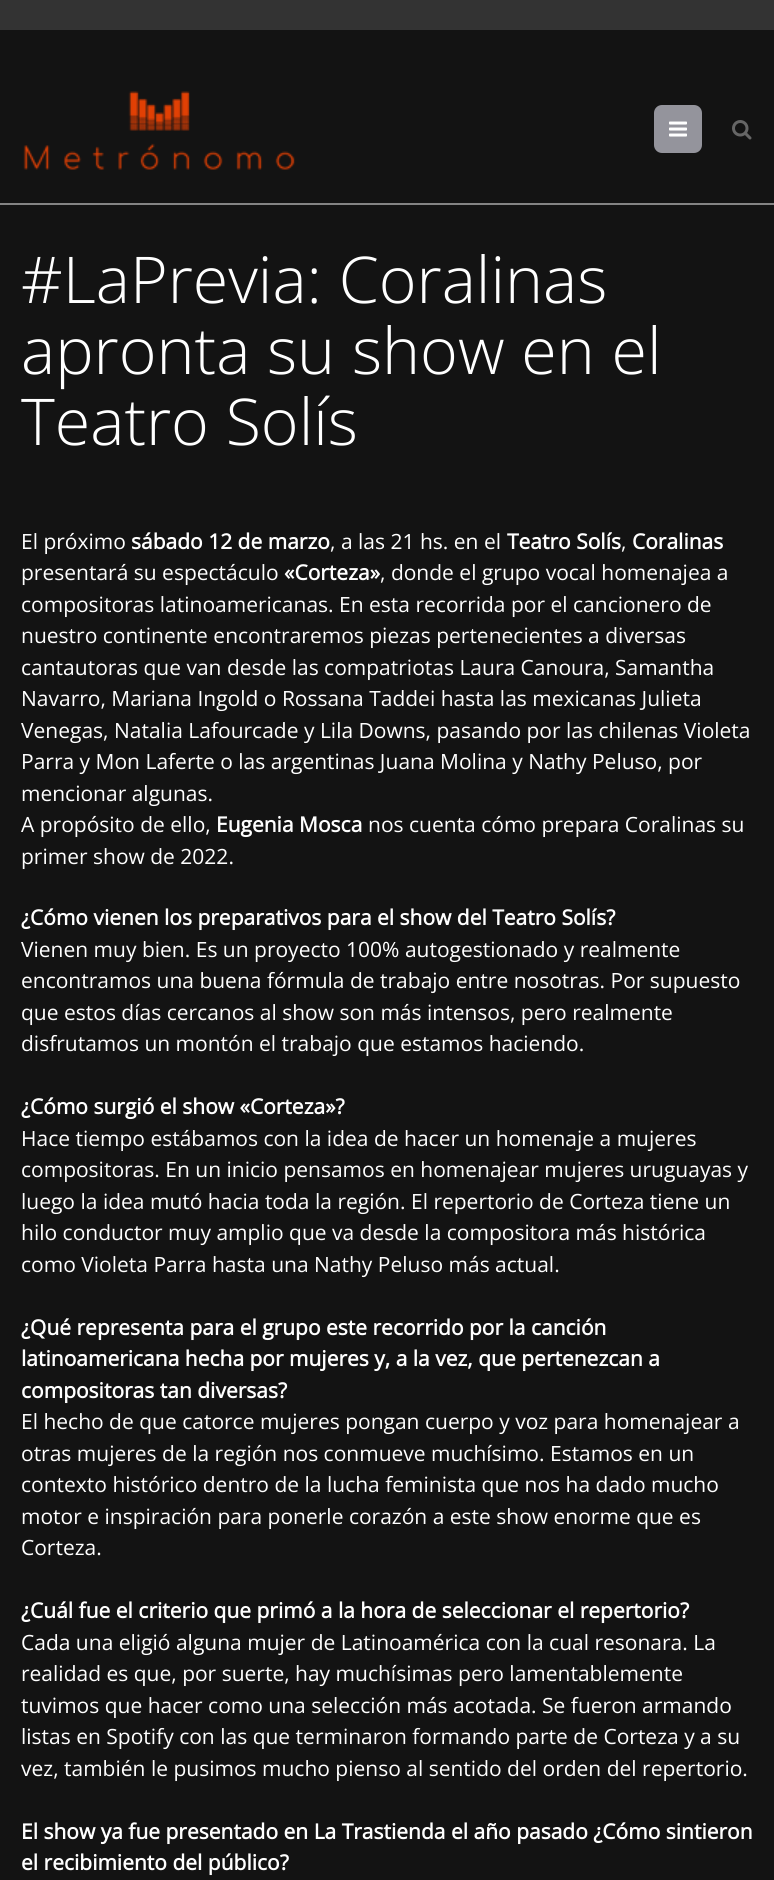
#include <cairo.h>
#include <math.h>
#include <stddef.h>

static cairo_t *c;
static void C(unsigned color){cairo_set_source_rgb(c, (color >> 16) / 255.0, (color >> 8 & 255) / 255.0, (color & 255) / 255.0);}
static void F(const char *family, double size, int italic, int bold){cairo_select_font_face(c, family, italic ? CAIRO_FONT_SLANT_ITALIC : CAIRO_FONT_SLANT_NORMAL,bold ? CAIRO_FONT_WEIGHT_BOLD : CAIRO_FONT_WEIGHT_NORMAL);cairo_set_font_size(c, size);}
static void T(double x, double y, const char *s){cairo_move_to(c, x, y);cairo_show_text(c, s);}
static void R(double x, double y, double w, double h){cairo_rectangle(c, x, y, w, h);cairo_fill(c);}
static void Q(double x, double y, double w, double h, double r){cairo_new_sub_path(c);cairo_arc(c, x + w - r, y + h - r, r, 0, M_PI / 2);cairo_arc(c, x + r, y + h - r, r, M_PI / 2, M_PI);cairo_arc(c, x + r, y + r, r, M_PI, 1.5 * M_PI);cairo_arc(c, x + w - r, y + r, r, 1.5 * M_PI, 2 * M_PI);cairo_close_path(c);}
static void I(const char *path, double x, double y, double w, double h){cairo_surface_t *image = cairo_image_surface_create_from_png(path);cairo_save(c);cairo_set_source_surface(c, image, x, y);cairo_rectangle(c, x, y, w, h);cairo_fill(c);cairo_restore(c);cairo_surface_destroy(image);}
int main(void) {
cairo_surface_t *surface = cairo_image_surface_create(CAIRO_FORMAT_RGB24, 774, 1880);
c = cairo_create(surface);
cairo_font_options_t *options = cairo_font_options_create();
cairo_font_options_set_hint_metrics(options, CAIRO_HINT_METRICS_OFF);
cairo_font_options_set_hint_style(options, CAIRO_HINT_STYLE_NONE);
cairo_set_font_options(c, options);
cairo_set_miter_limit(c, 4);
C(0x131313);
cairo_paint(c);
C(0x333333);
R(0,0,774,30);
I("1.png",23,91,272,79);
C(0x94949c);
Q(655,106,46,46,7);
cairo_fill_preserve(c);
cairo_stroke(c);
I("2.png",669,121,18,16);
I("3.png",732,120,20,20);
C(0x848484);
R(0,203,774,2);
F("Open Sans Light",64.5,0,0);
C(0xffffff);
T(21,303,"#LaPrevia: Coralinas");
T(21,374,"apronta su show en el");
T(21,445,"Teatro Solís");
F("Open Sans",21,0,0);
T(21,549,"El próximo");
F("Open Sans",21,0,1);
T(131,549,"sábado 12 de marzo");
F("Open Sans",21,0,0);
T(330,549,", a las 21 hs. en el");
F("Open Sans",21,0,1);
T(507,549,"Teatro Solís");
F("Open Sans",21,0,0);
T(621,549,",");
F("Open Sans",21,0,1);
T(632,549,"Coralinas");
F("Open Sans",21,0,0);
T(21,580,"presentará su espectáculo");
F("Open Sans",21,0,1);
T(284,580,"«Corteza»");
F("Open Sans",21,0,0);
T(380,580,", donde el grupo vocal homenajea a");
T(21,612,"compositoras latinoamericanas. En esta recorrida por el cancionero de");
T(21,643,"nuestro continente encontraremos piezas pertenecientes a diversas");
T(21,675,"cantautoras que van desde las compatriotas Laura Canoura, Samantha");
T(21,706,"Navarro, Mariana Ingold o Rossana Taddei hasta las mexicanas Julieta");
T(21,738,"Venegas, Natalia Lafourcade y Lila Downs, pasando por las chilenas Violeta");
T(21,769,"Parra y Mon Laferte o las argentinas Juana Molina y Nathy Peluso, por");
T(21,801,"mencionar algunas.");
T(21,832,"A propósito de ello,");
F("Open Sans",21,0,1);
T(216,832,"Eugenia Mosca");
F("Open Sans",21,0,0);
T(368,832,"nos cuenta cómo prepara Coralinas su");
T(21,864,"primer show de 2022.");
F("Open Sans",21,0,1);
T(21,925,"¿Cómo vienen los preparativos para el show del Teatro Solís?");
F("Open Sans",21,0,0);
T(21,957,"Vienen muy bien. Es un proyecto 100% autogestionado y realmente");
T(21,988,"encontramos una buena fórmula de trabajo entre nosotras. Por supuesto");
T(21,1020,"que estos días cercanos al show son más intensos, pero realmente");
T(21,1051,"disfrutamos un montón el trabajo que estamos haciendo.");
F("Open Sans",21,0,1);
T(21,1114,"¿Cómo surgió el show «Corteza»?");
F("Open Sans",21,0,0);
T(21,1146,"Hace tiempo estábamos con la idea de hacer un homenaje a mujeres");
T(21,1177,"compositoras. En un inicio pensamos en homenajear mujeres uruguayas y");
T(21,1209,"luego la idea mutó hacia toda la región. El repertorio de Corteza tiene un");
T(21,1240,"hilo conductor muy amplio que va desde la compositora más histórica");
T(21,1272,"como Violeta Parra hasta una Nathy Peluso más actual.");
F("Open Sans",21,0,1);
T(21,1335,"¿Qué representa para el grupo este recorrido por la canción");
T(21,1366,"latinoamericana hecha por mujeres y, a la vez, que pertenezcan a");
T(21,1398,"compositoras tan diversas?");
F("Open Sans",21,0,0);
T(21,1429,"El hecho de que catorce mujeres pongan cuerpo y voz para homenajear a");
T(21,1461,"otras mujeres de la región nos conmueve muchísimo. Estamos en un");
T(21,1492,"contexto histórico dentro de la lucha feminista que nos ha dado mucho");
T(21,1524,"motor e inspiración para ponerle corazón a este show enorme que es");
T(21,1555,"Corteza.");
F("Open Sans",21,0,1);
T(21,1618,"¿Cuál fue el criterio que primó a la hora de seleccionar el repertorio?");
F("Open Sans",21,0,0);
T(21,1650,"Cada una eligió alguna mujer de Latinoamérica con la cual resonara. La");
T(21,1681,"realidad es que, por suerte, hay muchísimas pero lamentablemente");
T(21,1713,"tuvimos que hacer como una selección más acotada. Se fueron armando");
T(21,1744,"listas en Spotify con las que terminaron formando parte de Corteza y a su");
T(21,1776,"vez, también le pusimos mucho pienso al sentido del orden del repertorio.");
F("Open Sans",21,0,1);
T(21,1839,"El show ya fue presentado en La Trastienda el año pasado ¿Cómo sintieron");
T(21,1870,"el recibimiento del público?");
cairo_surface_write_to_png(surface, "o.png");
cairo_font_options_destroy(options);
cairo_destroy(c);
cairo_surface_destroy(surface);
return 0;
}
